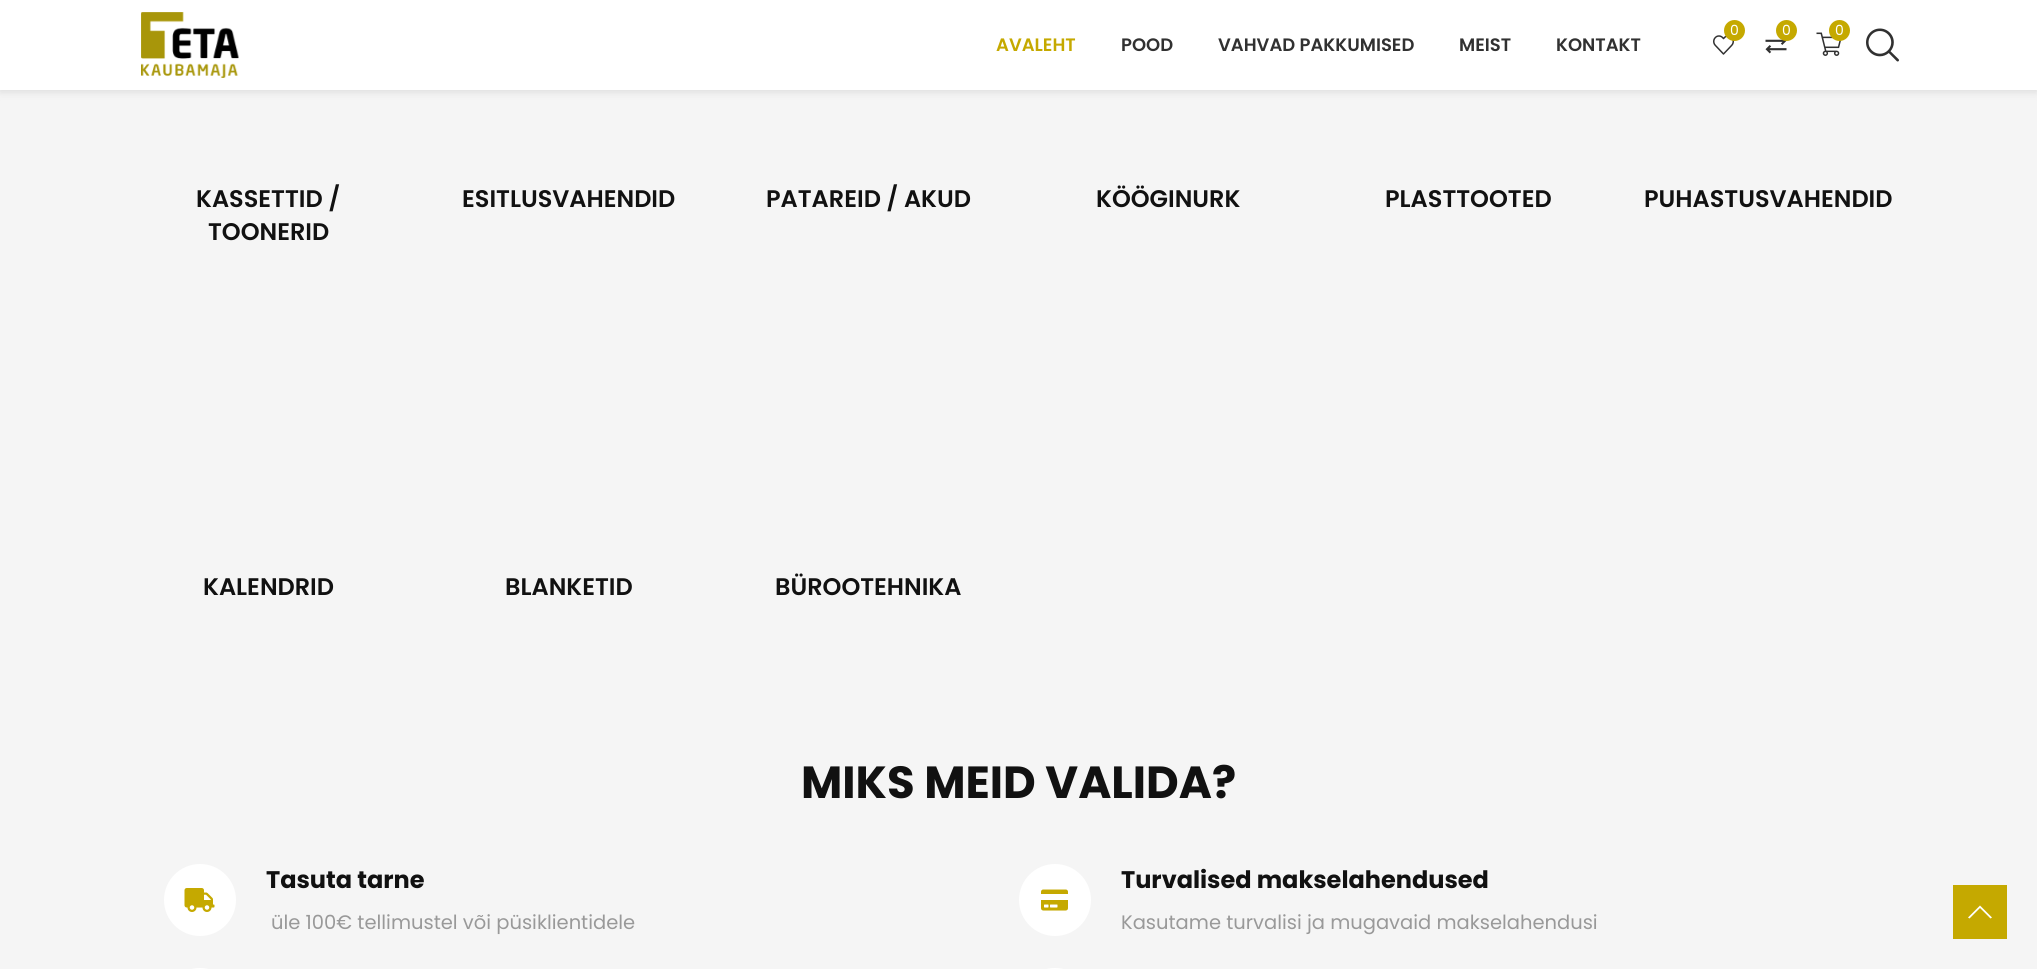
#include <cairo.h>
#include <math.h>
#include <stddef.h>

static cairo_t *c;
static void C(unsigned color){cairo_set_source_rgb(c, (color >> 16) / 255.0, (color >> 8 & 255) / 255.0, (color & 255) / 255.0);}
static void F(const char *family, double size, int italic, int bold){cairo_select_font_face(c, family, italic ? CAIRO_FONT_SLANT_ITALIC : CAIRO_FONT_SLANT_NORMAL,bold ? CAIRO_FONT_WEIGHT_BOLD : CAIRO_FONT_WEIGHT_NORMAL);cairo_set_font_size(c, size);}
static void T(double x, double y, const char *s){cairo_move_to(c, x, y);cairo_show_text(c, s);}
static void R(double x, double y, double w, double h){cairo_rectangle(c, x, y, w, h);cairo_fill(c);}
static void Q(double x, double y, double w, double h, double r){cairo_new_sub_path(c);cairo_arc(c, x + w - r, y + h - r, r, 0, M_PI / 2);cairo_arc(c, x + r, y + h - r, r, M_PI / 2, M_PI);cairo_arc(c, x + r, y + r, r, M_PI, 1.5 * M_PI);cairo_arc(c, x + w - r, y + r, r, 1.5 * M_PI, 2 * M_PI);cairo_close_path(c);}
static void S(double x, double y, double w, double h, double r, double blur, double alpha){cairo_push_group_with_content(c, CAIRO_CONTENT_ALPHA);cairo_set_operator(c, CAIRO_OPERATOR_SOURCE);for (int i = 15; i >= -15 && fmin(w, h) + blur * i / 3 > 0; i -= 2) {double e = blur * i / 6;cairo_set_source_rgba(c, 0, 0, 0, alpha * erfc((i - 1) / 8.5) / 2);Q(x - e, y - e, w + 2 * e, h + 2 * e, fmax(0, fmin(r + e + blur * .6, fmin(w, h) / 2 + e)));cairo_fill(c);}cairo_pattern_t *soft = cairo_pop_group(c);cairo_mask(c, soft);cairo_pattern_destroy(soft);}
static void I(const char *path, double x, double y, double w, double h){cairo_surface_t *image = cairo_image_surface_create_from_png(path);cairo_save(c);cairo_set_source_surface(c, image, x, y);cairo_rectangle(c, x, y, w, h);cairo_fill(c);cairo_restore(c);cairo_surface_destroy(image);}
int main(void) {
cairo_surface_t *surface = cairo_image_surface_create(CAIRO_FORMAT_RGB24, 2037, 969);
c = cairo_create(surface);
cairo_font_options_t *options = cairo_font_options_create();
cairo_font_options_set_hint_metrics(options, CAIRO_HINT_METRICS_OFF);
cairo_font_options_set_hint_style(options, CAIRO_HINT_STYLE_NONE);
cairo_set_font_options(c, options);
cairo_set_miter_limit(c, 4);
C(0xf5f5f5);
cairo_paint(c);
C(0xbebebe);
S(0,2,2037,90,0,4,.46);
C(0xffffff);
R(0,0,2037,90);
I("1.png",141,12,98,66);
F("Poppins SemiBold",18,0,0);
C(0xc5a900);
T(996,51,"AVALEHT");
C(0x313131);
T(1121,51,"POOD");
T(1218,51,"VAHVAD PAKKUMISED");
T(1459,51,"MEIST");
T(1556,51,"KONTAKT");
I("2.png",1713,35,21,20);
C(0xc5a900);
cairo_arc(c,1734.5,30.5,10.5,0,2 * M_PI);
cairo_fill(c);
F("Poppins",14,0,0);
C(0xffffff);
T(1730,35,"0");
I("3.png",1765,38,22,16);
C(0xc5a900);
cairo_arc(c,1786.5,30.5,10.5,0,2 * M_PI);
cairo_fill(c);
C(0xffffff);
T(1782,35,"0");
I("4.png",1816,32,26,24);
C(0xc5a900);
cairo_arc(c,1839.5,30.5,10.5,0,2 * M_PI);
cairo_fill(c);
C(0xffffff);
T(1835,35,"0");
I("5.png",1866,28,33,34);
F("Poppins SemiBold",24,0,0);
C(0x111111);
T(196,207,"KASSETTID /");
T(208,240,"TOONERID");
T(462,207,"ESITLUSVAHENDID");
T(766,207,"PATAREID / AKUD");
T(1096,207,"KÖÖGINURK");
T(1385,207,"PLASTTOOTED");
T(1644,207,"PUHASTUSVAHENDID");
T(203,595,"KALENDRID");
T(505,595,"BLANKETID");
T(775,595,"BÜROOTEHNIKA");
F("Poppins",45,0,1);
T(801,798,"MIKS MEID VALIDA?");
C(0xffffff);
cairo_new_path(c);
cairo_arc(c,200,900,36,0,2 * M_PI);
cairo_fill(c);
I("6.png",184,888,31,24);
F("Poppins",24,0,1);
C(0x111111);
T(266,888,"Tasuta tarne");
F("Poppins",19.5,0,0);
C(0x999999);
T(271,929,"üle 100€ tellimustel või püsiklientidele");
C(0xffffff);
Q(164,968,72,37,36);
cairo_fill(c);
cairo_arc(c,1055,900,36,0,2 * M_PI);
cairo_fill(c);
I("7.png",1041,889,27,22);
F("Poppins",24,0,1);
C(0x111111);
T(1121,888,"Turvalised makselahendused");
F("Poppins",19.5,0,0);
C(0x999999);
T(1121,929,"Kasutame turvalisi ja mugavaid makselahendusi");
C(0xffffff);
Q(1019,968,72,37,36);
cairo_fill(c);
C(0xc5a900);
R(1953,885,54,54);
C(0xffffff);
cairo_new_path(c);
cairo_move_to(c,1980,905.5);
cairo_line_to(c,1968,917.5);
cairo_line_to(c,1969.5,918.5);
cairo_line_to(c,1980,908);
cairo_line_to(c,1990.5,918.5);
cairo_line_to(c,1992,917.5);
cairo_close_path(c);
cairo_fill(c);
cairo_surface_write_to_png(surface, "o.png");
cairo_font_options_destroy(options);
cairo_destroy(c);
cairo_surface_destroy(surface);
return 0;
}
